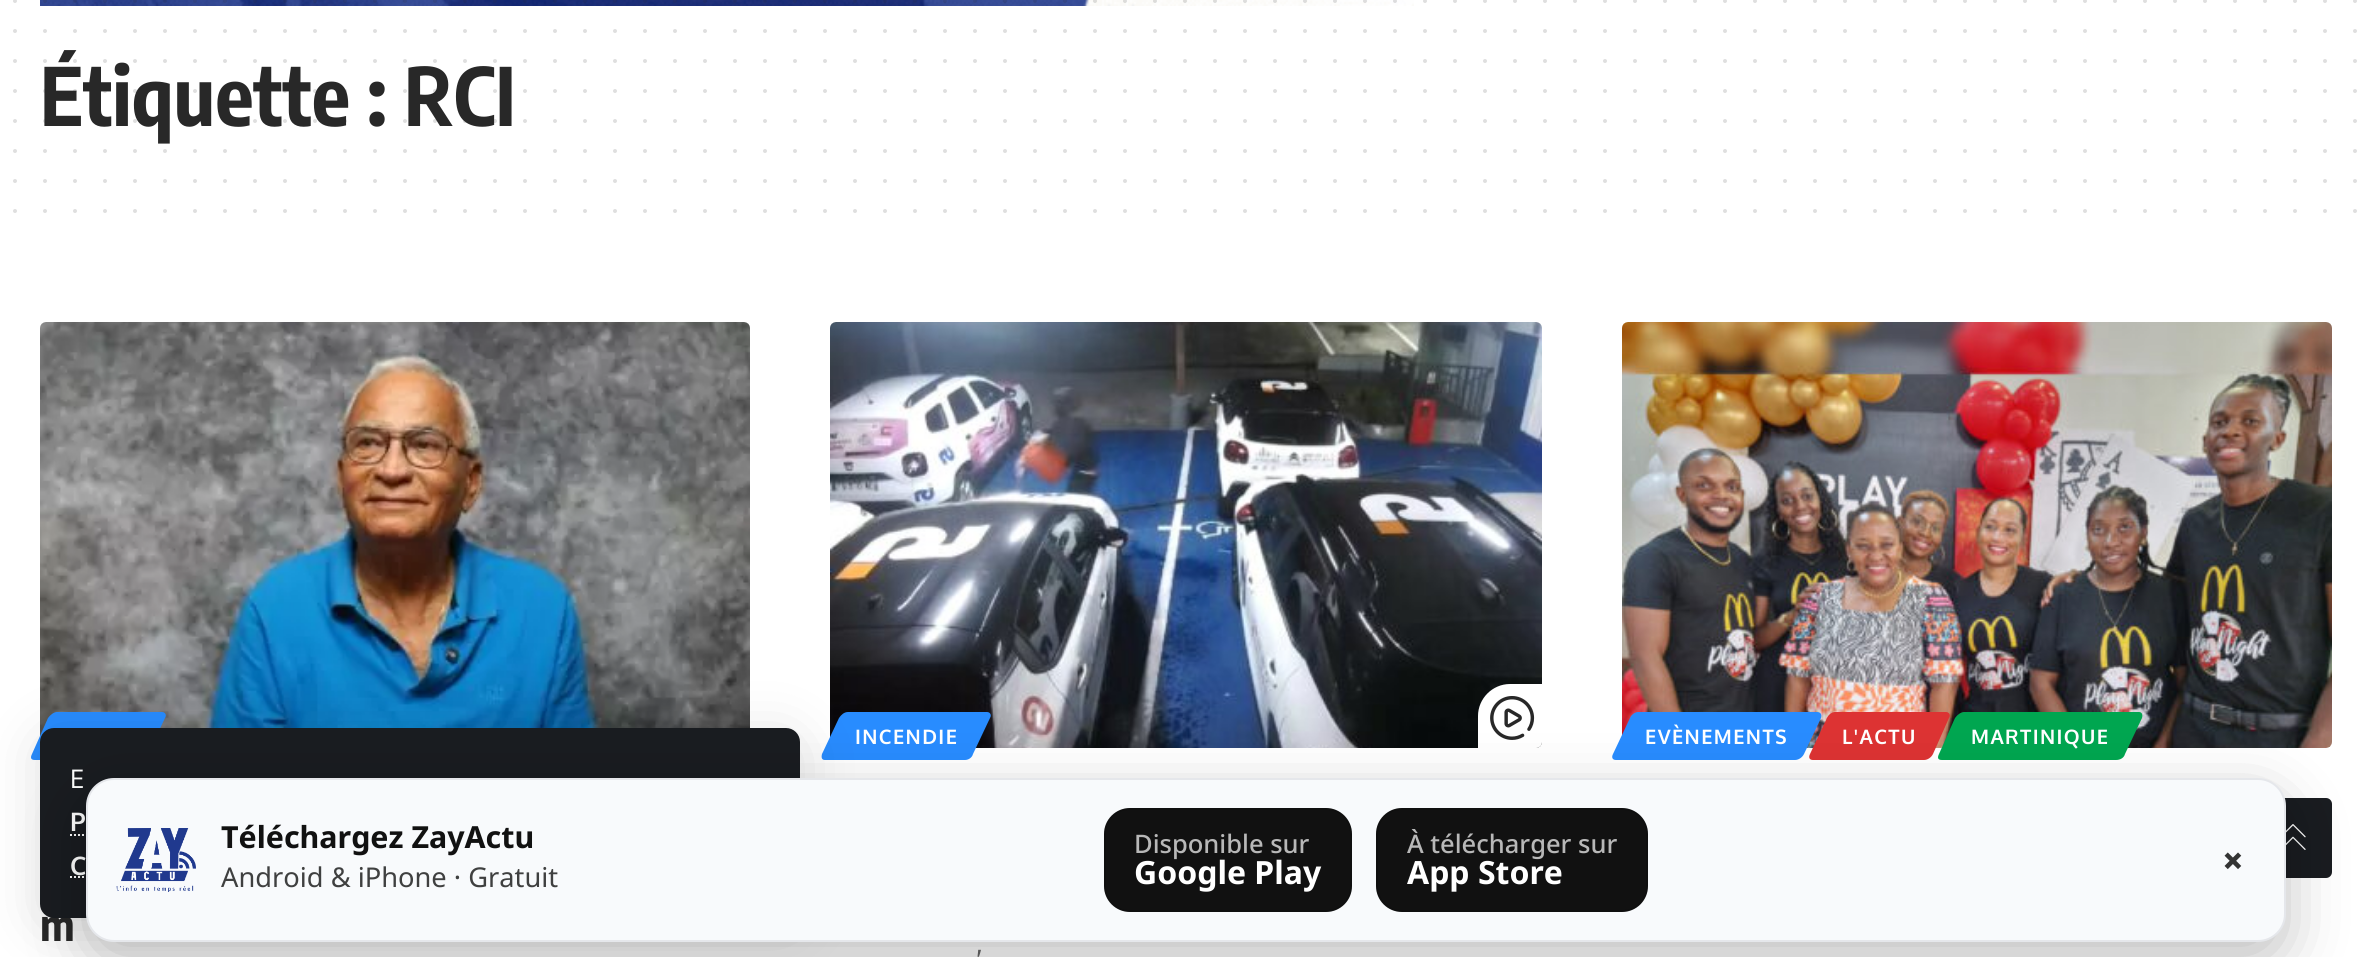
#include <cairo.h>
#include <math.h>
#include <stddef.h>

static cairo_t *c;
static void C(unsigned color){cairo_set_source_rgb(c, (color >> 16) / 255.0, (color >> 8 & 255) / 255.0, (color & 255) / 255.0);}
static void F(const char *family, double size, int italic, int bold){cairo_select_font_face(c, family, italic ? CAIRO_FONT_SLANT_ITALIC : CAIRO_FONT_SLANT_NORMAL,bold ? CAIRO_FONT_WEIGHT_BOLD : CAIRO_FONT_WEIGHT_NORMAL);cairo_set_font_size(c, size);}
static void T(double x, double y, const char *s){cairo_move_to(c, x, y);cairo_show_text(c, s);}
static void L(double x, double y, const char *s, double letter, double word){cairo_move_to(c, x, y);while (*s) {char ch[5] = {0};int n = 0;do ch[n++] = *s++; while ((*s & 0xC0) == 0x80);cairo_show_text(c, ch);cairo_rel_move_to(c, letter + word * (*ch == ' '), 0);}}
static void Q(double x, double y, double w, double h, double r){cairo_new_sub_path(c);cairo_arc(c, x + w - r, y + h - r, r, 0, M_PI / 2);cairo_arc(c, x + r, y + h - r, r, M_PI / 2, M_PI);cairo_arc(c, x + r, y + r, r, M_PI, 1.5 * M_PI);cairo_arc(c, x + w - r, y + r, r, 1.5 * M_PI, 2 * M_PI);cairo_close_path(c);}
static void S(double x, double y, double w, double h, double r, double blur, double alpha){cairo_push_group_with_content(c, CAIRO_CONTENT_ALPHA);cairo_set_operator(c, CAIRO_OPERATOR_SOURCE);for (int i = 15; i >= -15 && fmin(w, h) + blur * i / 3 > 0; i -= 2) {double e = blur * i / 6;cairo_set_source_rgba(c, 0, 0, 0, alpha * erfc((i - 1) / 8.5) / 2);Q(x - e, y - e, w + 2 * e, h + 2 * e, fmax(0, fmin(r + e + blur * .6, fmin(w, h) / 2 + e)));cairo_fill(c);}cairo_pattern_t *soft = cairo_pop_group(c);cairo_mask(c, soft);cairo_pattern_destroy(soft);}
static void I(const char *path, double x, double y, double w, double h){cairo_surface_t *image = cairo_image_surface_create_from_png(path);cairo_save(c);cairo_set_source_surface(c, image, x, y);cairo_rectangle(c, x, y, w, h);cairo_fill(c);cairo_restore(c);cairo_surface_destroy(image);}
int main(void) {
cairo_surface_t *surface = cairo_image_surface_create(CAIRO_FORMAT_RGB24, 2371, 957);
c = cairo_create(surface);
cairo_font_options_t *options = cairo_font_options_create();
cairo_font_options_set_hint_metrics(options, CAIRO_HINT_METRICS_OFF);
cairo_font_options_set_hint_style(options, CAIRO_HINT_STYLE_NONE);
cairo_set_font_options(c, options);
cairo_set_miter_limit(c, 4);
C(0xffffff);
cairo_paint(c);
I("1.png",40,0,1374,6);
cairo_new_path(c);
cairo_move_to(c,15,1);
cairo_line_to(c,2355.4,1);
cairo_set_source_rgba(c,0.157,0.157,0.157,0.15);
cairo_set_line_width(c,4);
cairo_set_line_cap(c,CAIRO_LINE_CAP_ROUND);
cairo_set_dash(c,(double[]){0,30},2,0);
cairo_stroke(c);
cairo_new_path(c);
cairo_move_to(c,15,31);
cairo_line_to(c,2355.4,31);
C(0xdfdfdf);
cairo_stroke(c);
F("Encode Sans Condensed",80,0,1);
C(0x282828);
T(40,126,"Étiquette : RCI");
cairo_new_path(c);
cairo_move_to(c,15,61);
cairo_line_to(c,2355.4,61);
C(0xdfdfdf);
cairo_stroke(c);
cairo_new_path(c);
cairo_move_to(c,15,91);
cairo_line_to(c,2355.4,91);
cairo_set_source_rgba(c,0.157,0.157,0.157,0.15);
cairo_stroke(c);
cairo_new_path(c);
cairo_move_to(c,15,121);
cairo_line_to(c,2355.4,121);
cairo_stroke(c);
cairo_new_path(c);
cairo_move_to(c,15,151);
cairo_line_to(c,2355.4,151);
C(0xdfdfdf);
cairo_stroke(c);
cairo_new_path(c);
cairo_move_to(c,15,181);
cairo_line_to(c,2355.4,181);
cairo_stroke(c);
cairo_new_path(c);
cairo_move_to(c,15,211);
cairo_line_to(c,2355.4,211);
cairo_stroke(c);
I("2.png",40,322,710,414);
C(0x288cff);
cairo_new_path(c);
cairo_move_to(c,57,712);
cairo_line_to(c,162,712);
cairo_curve_to(c,165,712,167,715,165,718);
cairo_line_to(c,148,754);
cairo_curve_to(c,147,758,143,760,139,760);
cairo_line_to(c,35,760);
cairo_curve_to(c,31,760,30,758,32,754);
cairo_line_to(c,48,718);
cairo_curve_to(c,50,715,54,712,57,712);
cairo_close_path(c);
cairo_fill(c);
F("Encode Sans Condensed",44,0,1);
C(0x282828);
T(40,941,"m");
I("3.png",830,322,712,426);
C(0xffffff);
cairo_new_path(c);
cairo_move_to(c,1510,684);
cairo_line_to(c,1542,684);
cairo_line_to(c,1542,742);
cairo_curve_to(c,1542,745.5,1539.5,748,1536,748);
cairo_line_to(c,1478,748);
cairo_line_to(c,1478,716);
cairo_curve_to(c,1478,698.5,1492.5,684,1510,684);
cairo_close_path(c);
cairo_fill(c);
I("4.png",1490,696,45,44);
C(0x288cff);
cairo_new_path(c);
cairo_move_to(c,848,712);
cairo_line_to(c,987,712);
cairo_curve_to(c,990,712,992,715,990,718);
cairo_line_to(c,973,754);
cairo_curve_to(c,972,758,968,760,965,760);
cairo_line_to(c,825,760);
cairo_curve_to(c,822,760,821,758,822,754);
cairo_line_to(c,839,718);
cairo_curve_to(c,841,715,844,712,848,712);
cairo_close_path(c);
cairo_fill(c);
F("Oxygen",20,0,1);
C(0xffffff);
L(855,744,"INCENDIE",1.4,0);
F("Oxygen",28,0,0);
C(0x666666);
T(976,953,",");
I("5.png",1622,322,710,426);
C(0x288cff);
cairo_new_path(c);
cairo_move_to(c,1638,712);
cairo_line_to(c,1817,712);
cairo_curve_to(c,1821,712,1822,715,1821,718);
cairo_line_to(c,1804,754);
cairo_curve_to(c,1802,758,1798,760,1795,760);
cairo_line_to(c,1616,760);
cairo_curve_to(c,1613,760,1611,758,1613,754);
cairo_line_to(c,1630,718);
cairo_curve_to(c,1631,715,1635,712,1638,712);
cairo_close_path(c);
cairo_fill(c);
F("Oxygen",20,0,1);
C(0xffffff);
L(1645,744,"EVÈNEMENTS",1.4,0);
C(0xdd3333);
cairo_new_path(c);
cairo_move_to(c,1835,712);
cairo_line_to(c,1946,712);
cairo_curve_to(c,1949,712,1951,715,1949,718);
cairo_line_to(c,1933,754);
cairo_curve_to(c,1931,758,1927,760,1924,760);
cairo_line_to(c,1813,760);
cairo_curve_to(c,1810,760,1808,758,1810,754);
cairo_line_to(c,1827,718);
cairo_curve_to(c,1828,715,1832,712,1835,712);
cairo_close_path(c);
cairo_fill(c);
C(0xffffff);
L(1842,744,"L'ACTU",1.4,0);
C(0x00a650);
cairo_new_path(c);
cairo_move_to(c,1964,712);
cairo_line_to(c,2139,712);
cairo_curve_to(c,2142,712,2143,715,2142,718);
cairo_line_to(c,2125,754);
cairo_curve_to(c,2124,758,2120,760,2116,760);
cairo_line_to(c,1942,760);
cairo_curve_to(c,1938,760,1937,758,1939,754);
cairo_line_to(c,1955,718);
cairo_curve_to(c,1957,715,1961,712,1964,712);
cairo_close_path(c);
cairo_fill(c);
C(0xffffff);
L(1971,744,"MARTINIQUE",1.4,0);
C(0x000000);
S(40,736,760,190,14,30,.12);
C(0x191c20);
Q(40,728,760,190,14);
cairo_fill(c);
F("Oxygen",25.5,0,0);
C(0xffffff);
T(70,788,"E");
F("Oxygen",25.5,0,1);
T(70,831,"P");
cairo_new_path(c);
cairo_move_to(c,70,835);
cairo_line_to(c,398.5,835);
cairo_set_line_width(c,2);
cairo_set_line_cap(c,CAIRO_LINE_CAP_BUTT);
cairo_set_dash(c,(double[]){2,2},2,0);
cairo_stroke(c);
T(70,875,"C");
cairo_new_path(c);
cairo_move_to(c,70,877);
cairo_line_to(c,349,877);
cairo_stroke(c);
C(0x191c20);
Q(2252,798,80,80,6);
cairo_fill(c);
I("6.png",2286,824,20,26);
C(0x000000);
S(86,798,2200,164,28,30,.25);
C(0xf8fafc);
Q(87,779,2198,162,27);
cairo_fill_preserve(c);
C(0xe5e7eb);
cairo_set_dash(c,NULL,0,0);
cairo_stroke(c);
I("7.png",116,828,80,64);
F("Noto Sans",30.4,0,1);
C(0x111111);
T(221,848,"Téléchargez ZayActu");
F("Noto Sans",27.25,0,0);
C(0x3f4040);
T(221,887,"Android & iPhone · Gratuit");
C(0x111111);
Q(1104,808,248,104,26);
cairo_fill(c);
Q(1105,809,246,102,25);
cairo_set_source_rgba(c,0,0,0,0.12);
cairo_stroke(c);
F("Noto Sans Medium",25.5,0,0);
C(0xb8b8b8);
T(1134,853,"Disponible sur");
F("Noto Sans",32,0,1);
C(0xffffff);
T(1134,884,"Google Play");
C(0x111111);
Q(1376,808,272,104,26);
cairo_fill(c);
Q(1377,809,270,102,25);
cairo_set_source_rgba(c,0,0,0,0.12);
cairo_stroke(c);
F("Noto Sans Medium",25.5,0,0);
C(0xb8b8b8);
T(1407,853,"À télécharger sur");
F("Noto Sans",32,0,1);
C(0xffffff);
T(1407,884,"App Store");
F("Encode Sans Condensed",40,0,1);
C(0x343434);
T(2223,876,"×");
cairo_surface_write_to_png(surface, "o.png");
cairo_font_options_destroy(options);
cairo_destroy(c);
cairo_surface_destroy(surface);
return 0;
}
